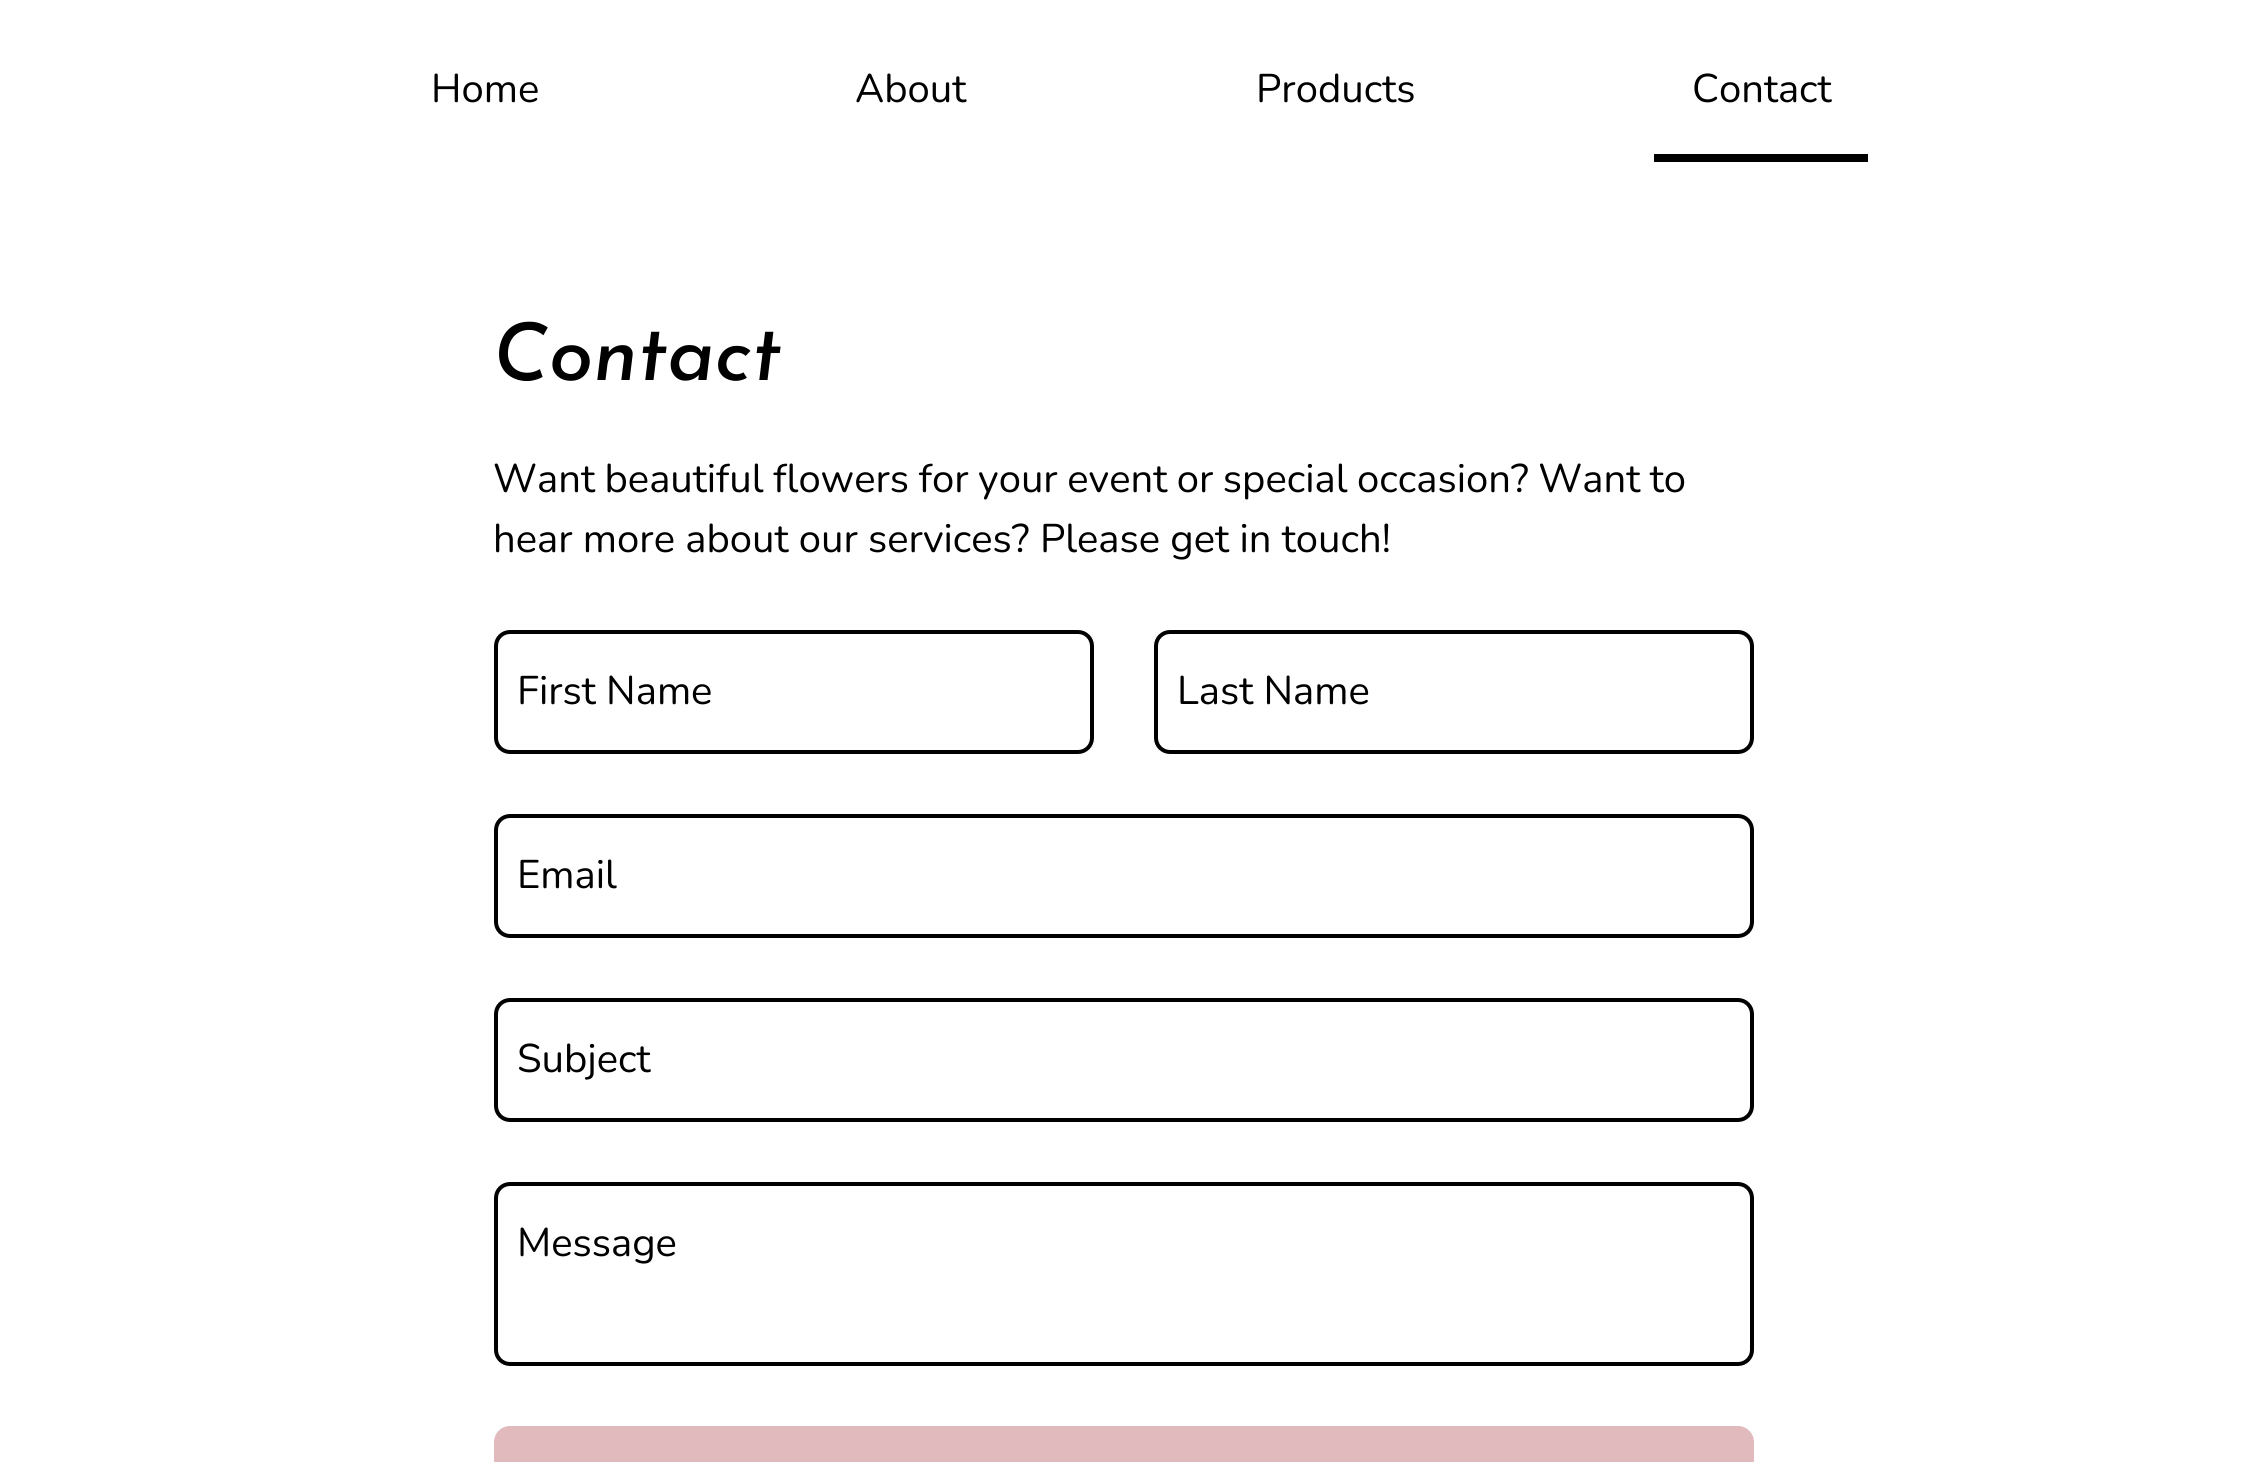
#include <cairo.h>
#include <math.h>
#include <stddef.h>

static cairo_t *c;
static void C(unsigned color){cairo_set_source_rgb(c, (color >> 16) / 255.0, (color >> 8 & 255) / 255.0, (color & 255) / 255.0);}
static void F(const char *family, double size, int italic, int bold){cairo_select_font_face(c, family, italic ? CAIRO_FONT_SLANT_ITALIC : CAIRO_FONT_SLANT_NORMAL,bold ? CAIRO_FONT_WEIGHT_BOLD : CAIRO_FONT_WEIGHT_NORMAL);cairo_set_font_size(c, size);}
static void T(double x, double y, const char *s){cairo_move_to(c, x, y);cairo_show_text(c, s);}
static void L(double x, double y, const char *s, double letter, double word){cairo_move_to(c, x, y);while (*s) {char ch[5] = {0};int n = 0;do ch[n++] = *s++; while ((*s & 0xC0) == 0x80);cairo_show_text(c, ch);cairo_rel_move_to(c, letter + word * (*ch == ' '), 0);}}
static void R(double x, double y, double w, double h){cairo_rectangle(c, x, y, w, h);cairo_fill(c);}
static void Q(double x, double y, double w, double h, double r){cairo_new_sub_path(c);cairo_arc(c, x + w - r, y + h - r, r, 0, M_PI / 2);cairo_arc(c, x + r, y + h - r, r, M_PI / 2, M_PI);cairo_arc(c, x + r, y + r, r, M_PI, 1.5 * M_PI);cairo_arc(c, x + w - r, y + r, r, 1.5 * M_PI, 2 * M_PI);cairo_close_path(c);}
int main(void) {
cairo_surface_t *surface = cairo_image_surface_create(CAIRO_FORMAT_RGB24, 2246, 1462);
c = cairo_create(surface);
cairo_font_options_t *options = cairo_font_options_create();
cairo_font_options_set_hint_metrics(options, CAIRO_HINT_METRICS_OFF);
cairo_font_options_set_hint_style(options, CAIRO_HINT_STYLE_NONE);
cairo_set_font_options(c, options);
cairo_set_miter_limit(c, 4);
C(0xffffff);
cairo_paint(c);
F("Nunito",40,0,0);
C(0x000000);
T(431,102,"Home");
T(855,102,"About");
T(1256,102,"Products");
T(1692,102,"Contact");
R(1654,154,214,8);
F("Josefin Sans Thin",80,1,0);
T(493,380,"Contact");
F("Nunito",40,0,0);
L(493,492,"Want beautiful flowers for your event or special occasion? Want to",0,-.75);
T(493,552,"hear more about our services? Please get in touch!");
Q(496,632,596,120,14);
cairo_set_line_width(c,4);
cairo_stroke(c);
T(517,704,"First Name");
Q(1156,632,596,120,14);
cairo_stroke(c);
T(1177,704,"Last Name");
Q(496,816,1256,120,14);
cairo_stroke(c);
T(517,888,"Email");
Q(496,1000,1256,120,14);
cairo_stroke(c);
T(517,1072,"Subject");
Q(496,1184,1256,180,14);
cairo_stroke(c);
T(517,1256,"Message");
C(0xe1babe);
Q(494,1426,1260,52,16);
cairo_fill(c);
cairo_surface_write_to_png(surface, "o.png");
cairo_font_options_destroy(options);
cairo_destroy(c);
cairo_surface_destroy(surface);
return 0;
}
